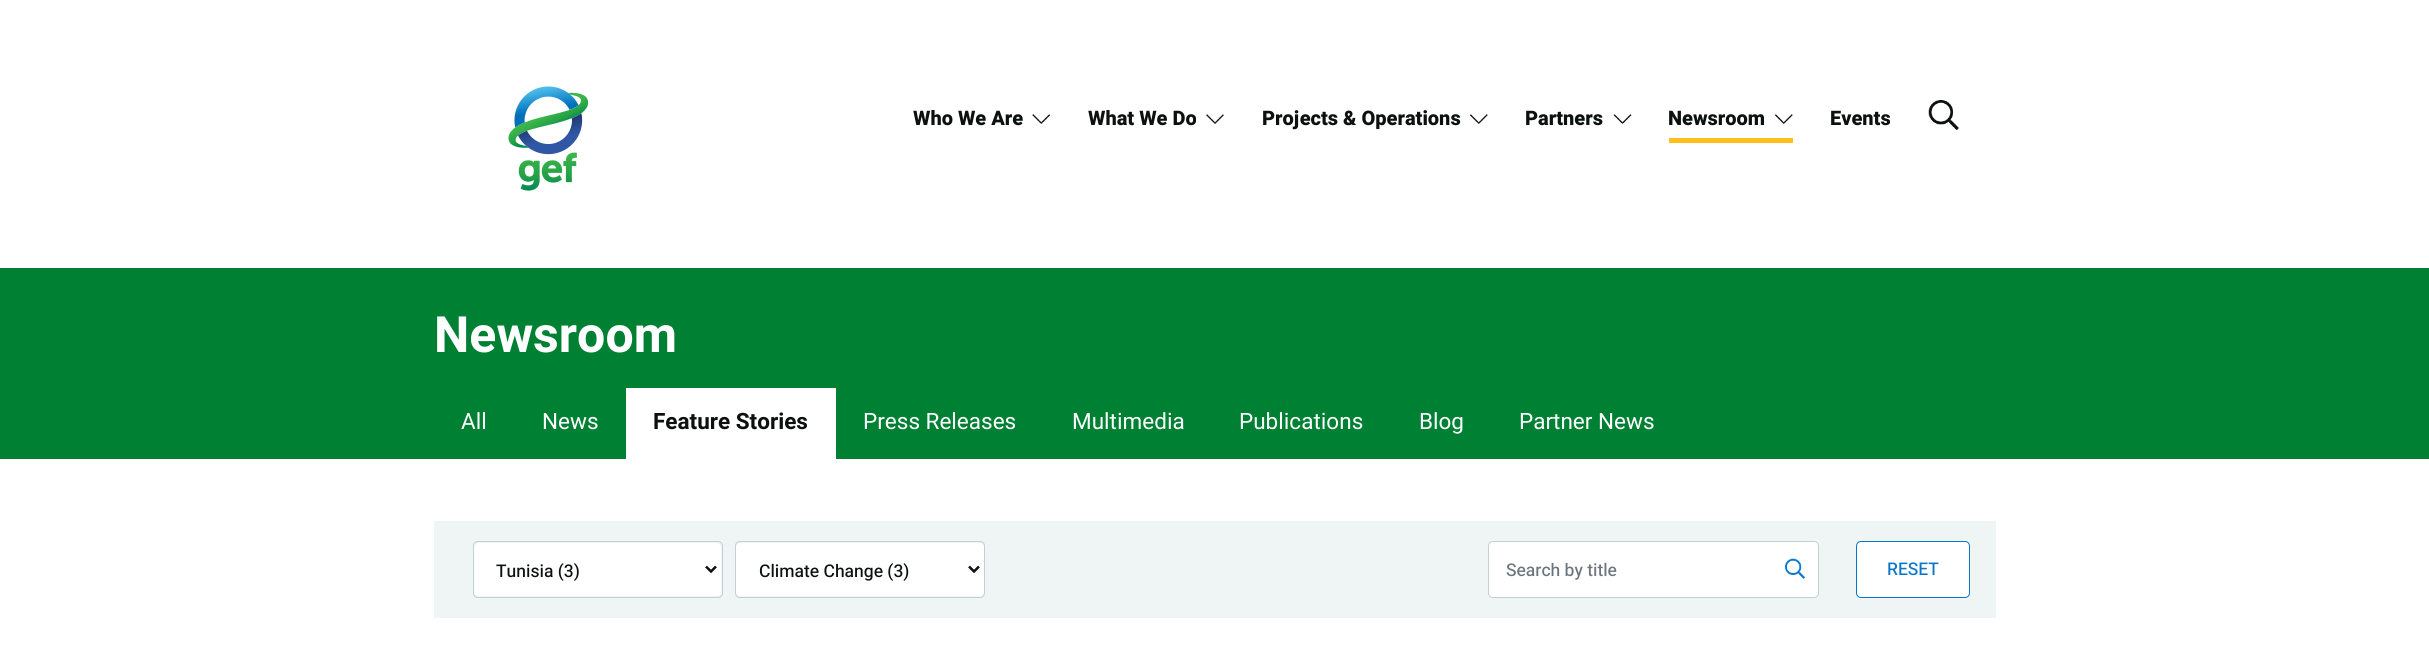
#include <cairo.h>
#include <math.h>
#include <stddef.h>

static cairo_t *c;
static void C(unsigned color){cairo_set_source_rgb(c, (color >> 16) / 255.0, (color >> 8 & 255) / 255.0, (color & 255) / 255.0);}
static void F(const char *family, double size, int italic, int bold){cairo_select_font_face(c, family, italic ? CAIRO_FONT_SLANT_ITALIC : CAIRO_FONT_SLANT_NORMAL,bold ? CAIRO_FONT_WEIGHT_BOLD : CAIRO_FONT_WEIGHT_NORMAL);cairo_set_font_size(c, size);}
static void T(double x, double y, const char *s){cairo_move_to(c, x, y);cairo_show_text(c, s);}
static void R(double x, double y, double w, double h){cairo_rectangle(c, x, y, w, h);cairo_fill(c);}
static void Q(double x, double y, double w, double h, double r){cairo_new_sub_path(c);cairo_arc(c, x + w - r, y + h - r, r, 0, M_PI / 2);cairo_arc(c, x + r, y + h - r, r, M_PI / 2, M_PI);cairo_arc(c, x + r, y + r, r, M_PI, 1.5 * M_PI);cairo_arc(c, x + w - r, y + r, r, 1.5 * M_PI, 2 * M_PI);cairo_close_path(c);}
static void I(const char *path, double x, double y, double w, double h){cairo_surface_t *image = cairo_image_surface_create_from_png(path);cairo_save(c);cairo_set_source_surface(c, image, x, y);cairo_rectangle(c, x, y, w, h);cairo_fill(c);cairo_restore(c);cairo_surface_destroy(image);}
int main(void) {
cairo_surface_t *surface = cairo_image_surface_create(CAIRO_FORMAT_RGB24, 2429, 655);
c = cairo_create(surface);
cairo_font_options_t *options = cairo_font_options_create();
cairo_font_options_set_hint_metrics(options, CAIRO_HINT_METRICS_OFF);
cairo_font_options_set_hint_style(options, CAIRO_HINT_STYLE_NONE);
cairo_set_font_options(c, options);
cairo_set_miter_limit(c, 4);
C(0xffffff);
cairo_paint(c);
I("1.png",508,86,81,105);
I("2.png",1032,114,18,10);
F("Heebo ExtraBold",20,0,0);
C(0x0c110f);
T(913,125,"Who We Are");
I("3.png",1206,114,18,10);
T(1088,125,"What We Do");
I("4.png",1470,114,18,10);
T(1262,125,"Projects & Operations");
I("5.png",1613,114,19,10);
T(1525,125,"Partners");
I("6.png",1775,114,18,10);
C(0xffc019);
R(1669,138,124,5);
C(0x0c110f);
T(1668,125,"Newsroom");
T(1830,125,"Events");
I("7.png",1928,100,31,30);
C(0x008033);
R(0,268,2429,191);
F("Heebo",50,0,1);
C(0xffffff);
T(434,352,"Newsroom");
F("Heebo",22.5,0,0);
T(461,429,"All");
T(542,429,"News");
R(626,388,210,71);
F("Heebo",22.5,0,1);
C(0x0c110f);
T(653,429,"Feature Stories");
F("Heebo",22.5,0,0);
C(0xffffff);
T(863,429,"Press Releases");
T(1072,429,"Multimedia");
T(1239,429,"Publications");
T(1419,429,"Blog");
T(1519,429,"Partner News");
C(0xeff4f4);
R(434,521,1562,97);
C(0xffffff);
Q(474,543,247,53,4);
cairo_fill(c);
Q(473.5,541.5,249,56,4.5);
C(0xc4cfcf);
cairo_set_line_width(c,1);
cairo_stroke(c);
cairo_new_path(c);
cairo_move_to(c,706,566.5);
cairo_line_to(c,711,571.5);
cairo_line_to(c,716,566.5);
C(0x0c110f);
cairo_set_line_width(c,2.5);
cairo_stroke(c);
F("Heebo Medium",17.5,0,0);
T(496,577,"Tunisia (3)");
C(0xffffff);
Q(736,543,248,53,4);
cairo_fill(c);
Q(735.5,541.5,249,56,4.5);
C(0xc4cfcf);
cairo_set_line_width(c,1);
cairo_stroke(c);
cairo_new_path(c);
cairo_move_to(c,969,566.5);
cairo_line_to(c,974,571.5);
cairo_line_to(c,979,566.5);
C(0x0c110f);
cairo_set_line_width(c,2.5);
cairo_stroke(c);
T(759,577,"Climate Change (3)");
C(0xffffff);
Q(1488,541,331,57,5);
cairo_fill(c);
I("8.png",1785,558,20,21);
Q(1488.5,541.5,330,56,4.5);
C(0xc4cfcf);
cairo_set_line_width(c,1);
cairo_stroke(c);
C(0x6c757d);
T(1506,576,"Search by title");
C(0xffffff);
Q(1856.5,541.5,113,56,4.5);
cairo_fill_preserve(c);
C(0x0876cd);
cairo_stroke(c);
T(1887,575,"RESET");
cairo_surface_write_to_png(surface, "o.png");
cairo_font_options_destroy(options);
cairo_destroy(c);
cairo_surface_destroy(surface);
return 0;
}
